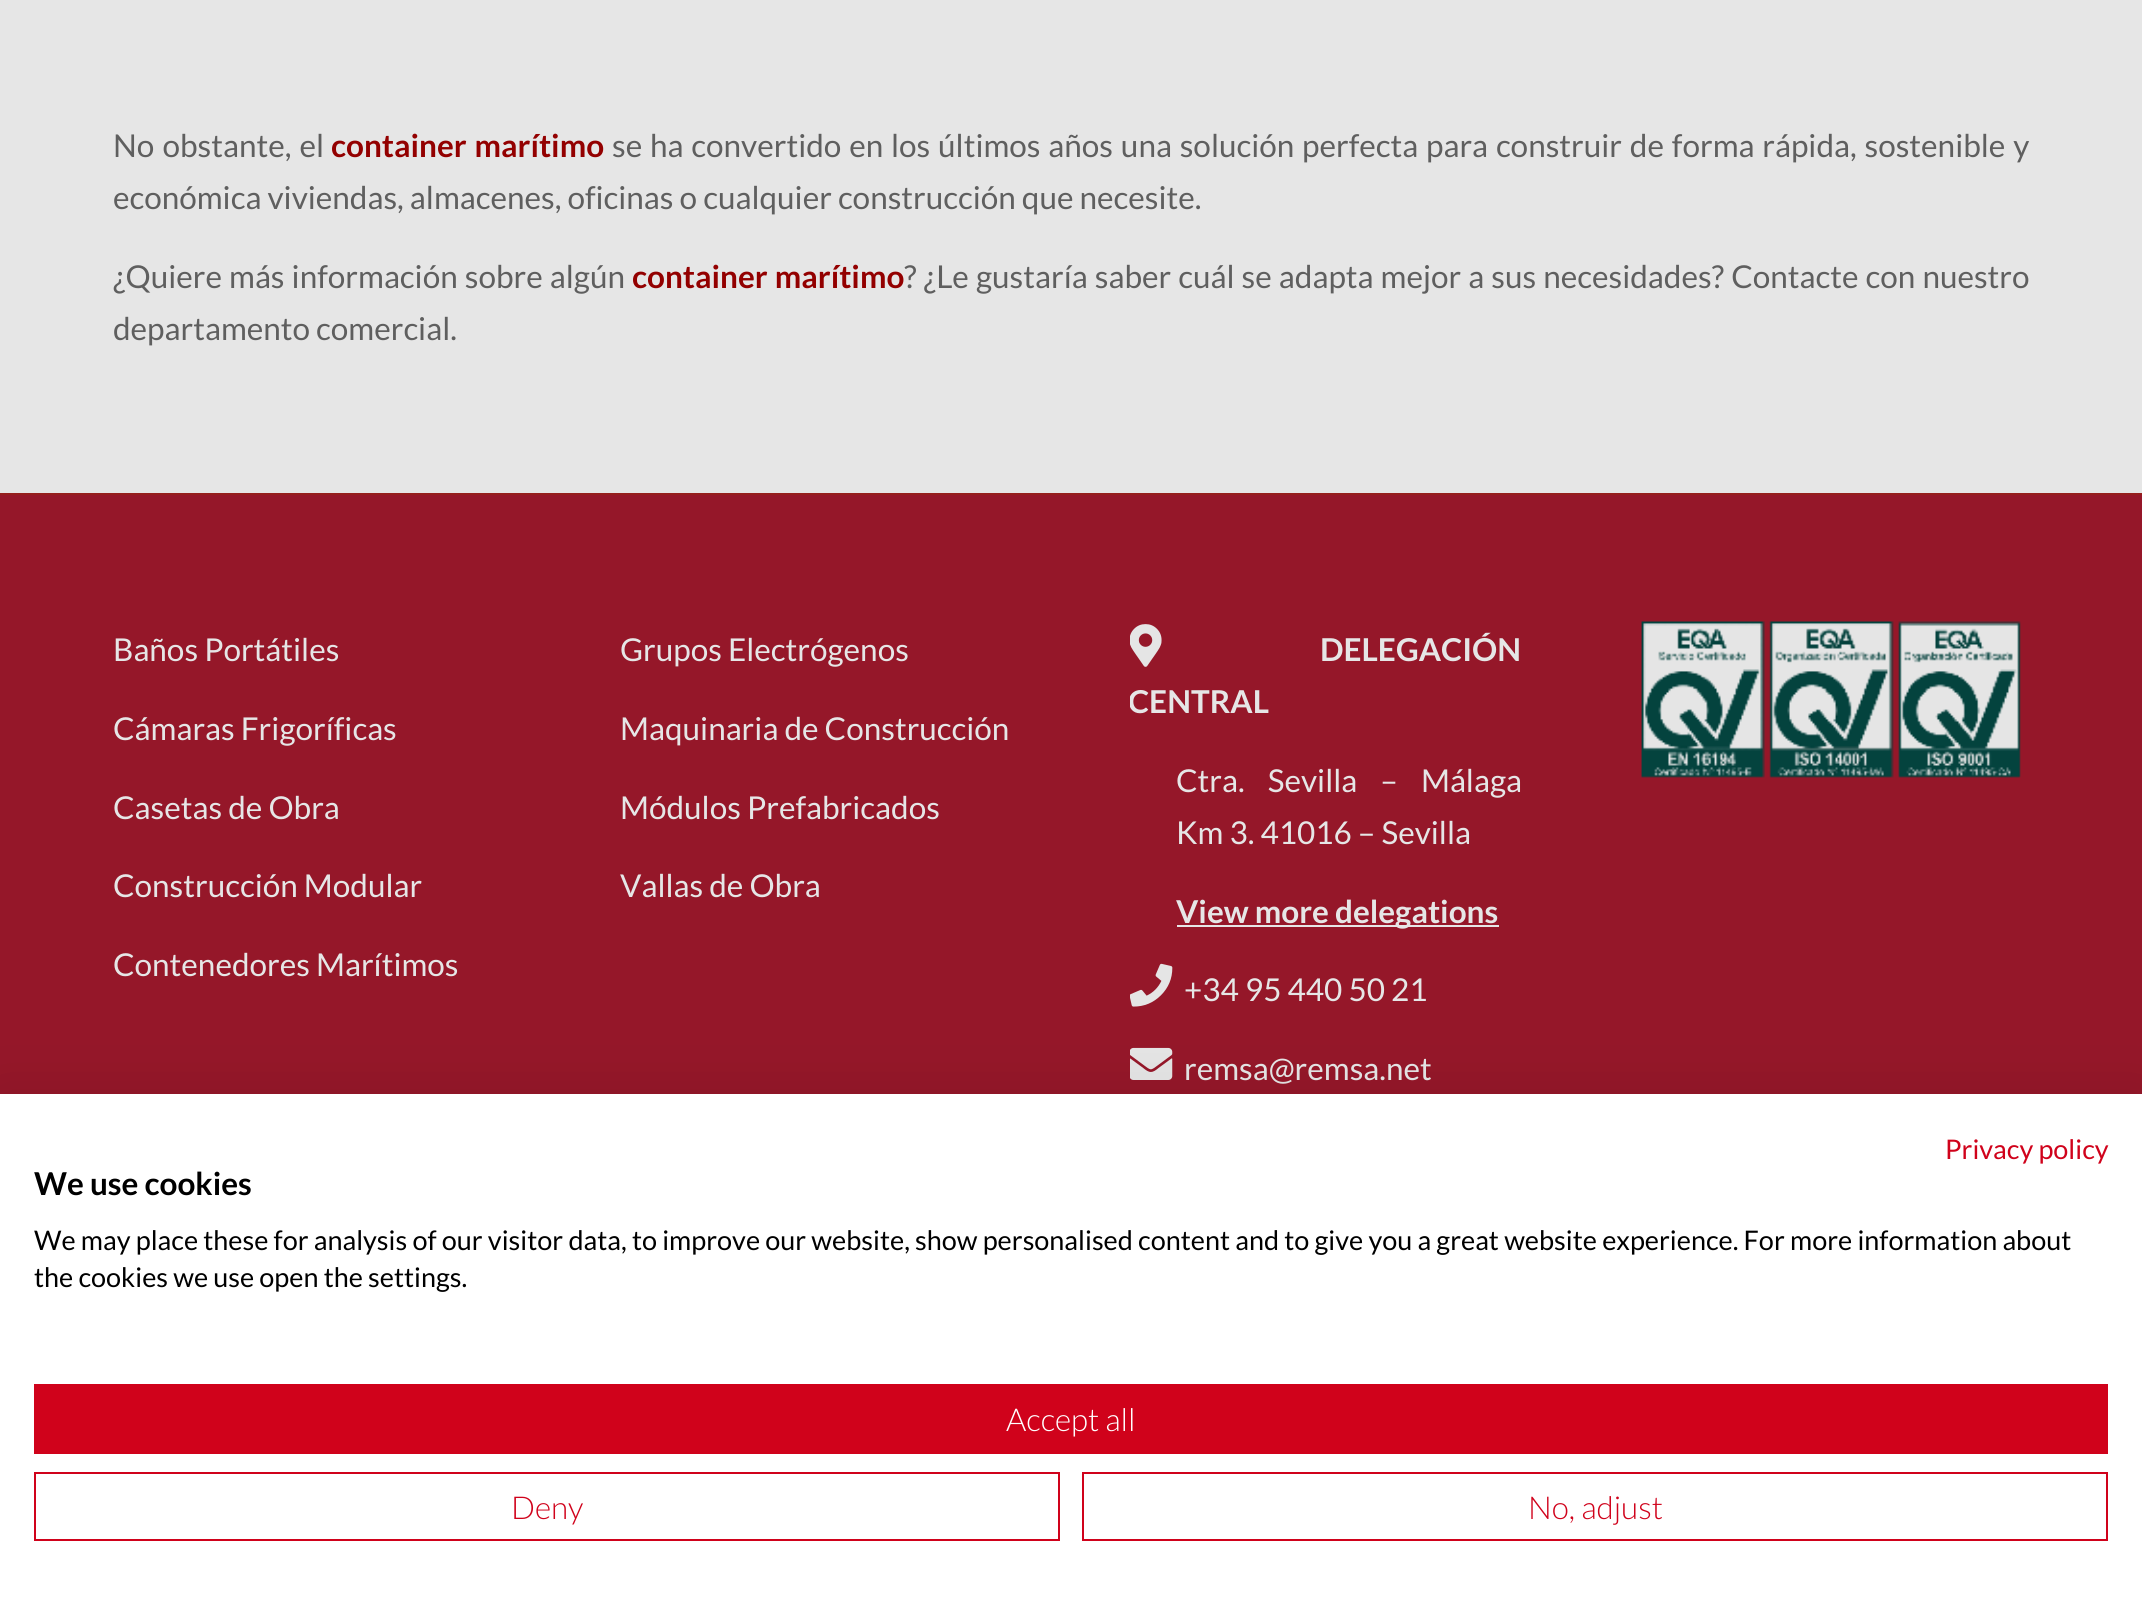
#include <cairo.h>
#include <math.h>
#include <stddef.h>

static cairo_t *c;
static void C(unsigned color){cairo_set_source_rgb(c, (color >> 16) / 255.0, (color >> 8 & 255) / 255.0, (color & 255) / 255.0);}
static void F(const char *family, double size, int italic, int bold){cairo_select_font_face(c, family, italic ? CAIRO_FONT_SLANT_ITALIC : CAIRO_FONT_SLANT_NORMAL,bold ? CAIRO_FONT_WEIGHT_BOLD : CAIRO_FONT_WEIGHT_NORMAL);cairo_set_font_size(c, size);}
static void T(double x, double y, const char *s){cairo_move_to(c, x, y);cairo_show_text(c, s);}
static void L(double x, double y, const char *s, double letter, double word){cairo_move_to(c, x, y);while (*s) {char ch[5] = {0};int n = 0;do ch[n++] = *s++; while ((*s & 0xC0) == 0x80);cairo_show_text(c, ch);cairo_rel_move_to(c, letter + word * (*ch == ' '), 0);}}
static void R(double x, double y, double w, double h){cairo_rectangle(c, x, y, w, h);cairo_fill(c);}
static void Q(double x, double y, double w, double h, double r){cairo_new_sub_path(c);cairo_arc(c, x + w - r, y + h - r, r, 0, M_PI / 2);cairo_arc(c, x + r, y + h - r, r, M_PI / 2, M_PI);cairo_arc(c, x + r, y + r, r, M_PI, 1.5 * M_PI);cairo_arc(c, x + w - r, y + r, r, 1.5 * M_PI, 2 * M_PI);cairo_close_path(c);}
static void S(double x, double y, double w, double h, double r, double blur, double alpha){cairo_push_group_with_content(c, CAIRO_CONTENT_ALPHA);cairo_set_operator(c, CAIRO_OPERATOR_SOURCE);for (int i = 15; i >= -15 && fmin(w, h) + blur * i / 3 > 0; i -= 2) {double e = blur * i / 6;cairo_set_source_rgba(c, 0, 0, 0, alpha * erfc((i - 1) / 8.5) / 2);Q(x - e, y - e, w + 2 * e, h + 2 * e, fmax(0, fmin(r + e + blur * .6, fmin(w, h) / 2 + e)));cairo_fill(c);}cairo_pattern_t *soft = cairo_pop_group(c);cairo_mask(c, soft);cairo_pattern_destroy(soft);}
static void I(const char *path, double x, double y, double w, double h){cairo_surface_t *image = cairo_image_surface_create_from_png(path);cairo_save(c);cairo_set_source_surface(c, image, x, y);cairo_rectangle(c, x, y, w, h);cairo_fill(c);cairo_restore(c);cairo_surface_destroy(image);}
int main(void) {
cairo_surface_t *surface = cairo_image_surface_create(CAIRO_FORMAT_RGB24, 2142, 1602);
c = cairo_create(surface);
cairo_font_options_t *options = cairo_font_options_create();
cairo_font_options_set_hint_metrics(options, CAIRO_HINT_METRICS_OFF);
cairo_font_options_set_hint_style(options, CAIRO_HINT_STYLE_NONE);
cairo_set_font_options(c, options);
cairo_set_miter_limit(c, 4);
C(0x951729);
cairo_paint(c);
C(0xe6e6e6);
R(0,0,2142,493);
F("Lato",31.5,0,0);
C(0x5f5f5f);
L(113,157,"No obstante, el",0,2);
F("Lato",31.5,0,1);
C(0x930000);
L(331,157,"container marítimo",0,1.75);
F("Lato",31.5,0,0);
C(0x5f5f5f);
L(612,157,"se ha convertido en los últimos años una solución perfecta para construir de forma rápida, sostenible y",0,1.75);
T(113,209,"económica viviendas, almacenes, oficinas o cualquier construcción que necesite.");
L(113,288,"¿Quiere más información sobre algún",0,1);
F("Lato",31.5,0,1);
C(0x930000);
L(632,288,"container marítimo",0,1);
F("Lato",31.5,0,0);
C(0x5f5f5f);
L(904,288,"? ¿Le gustaría saber cuál se adapta mejor a sus necesidades? Contacte con nuestro",0,1);
T(113,340,"departamento comercial.");
C(0x951e1c);
R(0,493,2142,2);
C(0xe6e6e6);
T(113,661,"Baños Portátiles");
T(113,740,"Cámaras Frigoríficas");
T(113,819,"Casetas de Obra");
T(113,897,"Construcción Modular");
T(113,976,"Contenedores Marítimos");
T(620,661,"Grupos Electrógenos");
T(620,740,"Maquinaria de Construcción");
T(620,819,"Módulos Prefabricados");
T(620,897,"Vallas de Obra");
I("1.png",1130,624,32,43);
F("Lato",31.5,0,1);
T(1320,661,"DELEGACIÓN");
cairo_save(c);
cairo_rectangle(c,1130,596,391,525);
cairo_clip(c);
T(1128,713,"CENTRAL");
cairo_restore(c);
F("Lato",31.5,0,0);
L(1176,792,"Ctra. Sevilla – Málaga",0,17);
T(1176,844,"Km 3. 41016 – Sevilla");
R(1177,925,322,2);
F("Lato",31.5,0,1);
T(1176,923,"View more delegations");
I("2.png",1130,963,43,44);
F("Lato",31.5,0,0);
T(1184,1001,"+34 95 440 50 21");
I("3.png",1130,1047,43,33);
T(1184,1080,"remsa@remsa.net");
I("4.png",1641,621,380,157);
C(0x000000);
S(0,1094,2142,508,0,27,.1);
C(0xffffff);
R(0,1094,2142,508);
F("Lato",27,0,0);
C(0xd0021b);
T(1945,1159,"Privacy policy");
F("Lato",31.5,0,1);
C(0x000000);
T(34,1195,"We use cookies");
F("Lato",27,0,0);
T(34,1250,"We may place these for analysis of our visitor data, to improve our website, show personalised content and to give you a great website experience. For more information about");
T(34,1287,"the cookies we use open the settings.");
C(0xd0021b);
R(34,1384,2074,70);
F("Lato Light",31.5,0,0);
C(0xffffff);
T(1006,1431,"Accept all");
cairo_rectangle(c,35,1473,1024,67);
C(0xd0021b);
cairo_stroke(c);
T(511,1519,"Deny");
cairo_rectangle(c,1083,1473,1024,67);
cairo_stroke(c);
T(1528,1519,"No, adjust");
cairo_surface_write_to_png(surface, "o.png");
cairo_font_options_destroy(options);
cairo_destroy(c);
cairo_surface_destroy(surface);
return 0;
}
